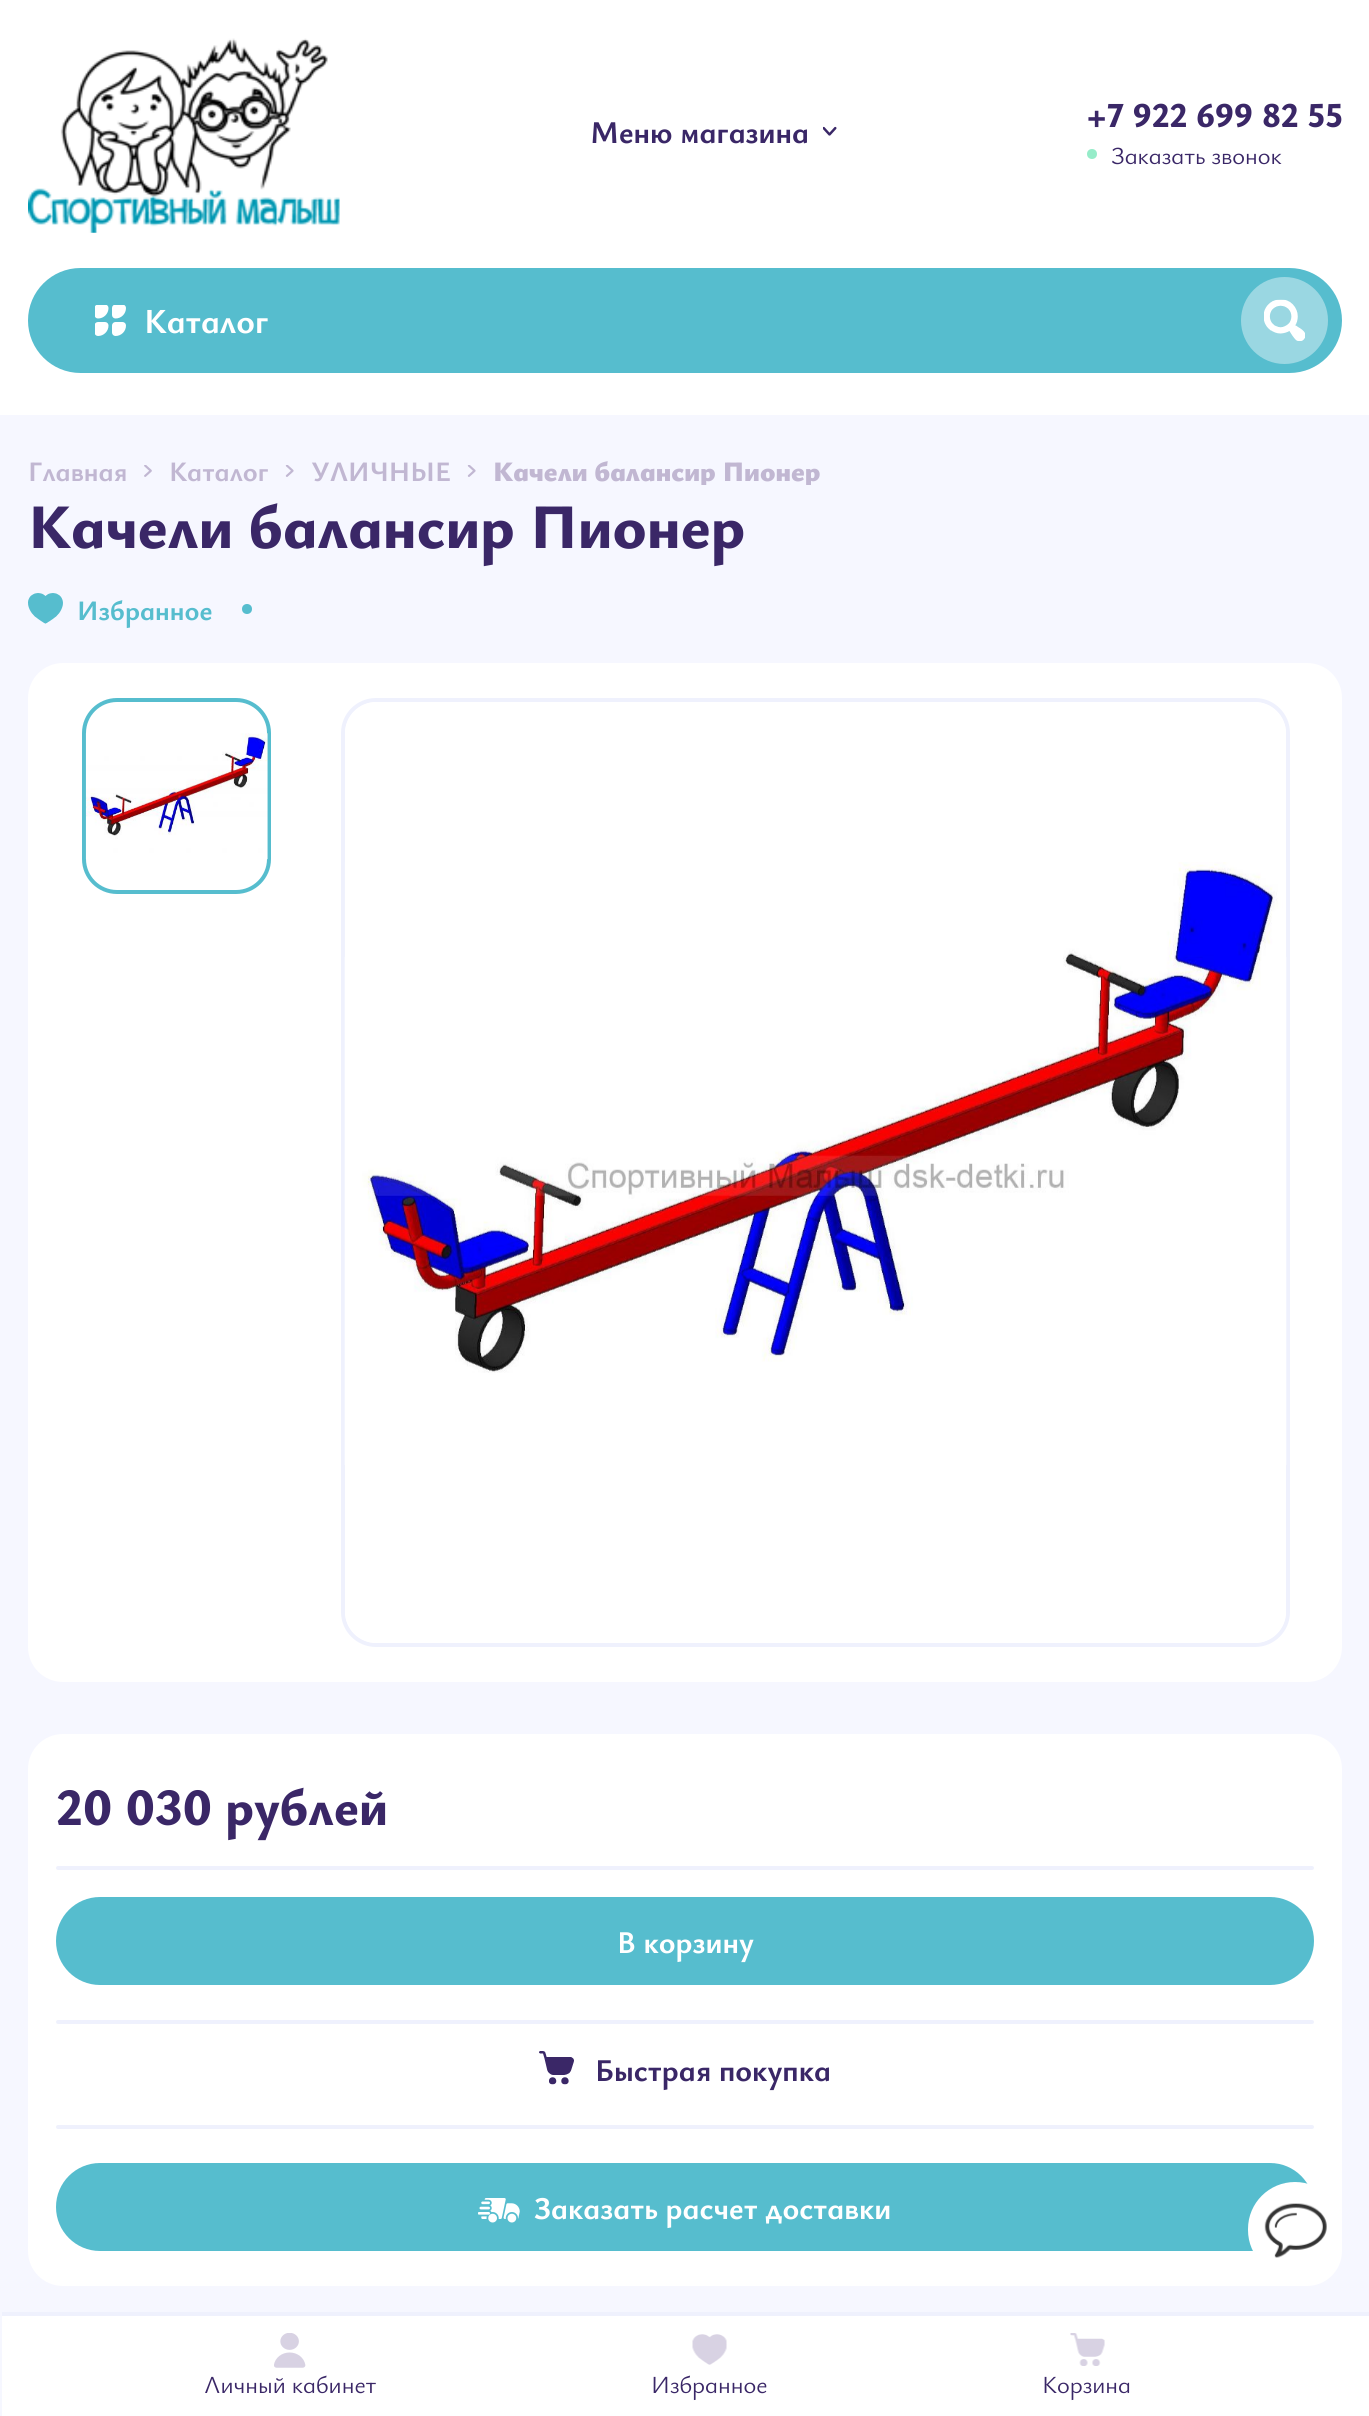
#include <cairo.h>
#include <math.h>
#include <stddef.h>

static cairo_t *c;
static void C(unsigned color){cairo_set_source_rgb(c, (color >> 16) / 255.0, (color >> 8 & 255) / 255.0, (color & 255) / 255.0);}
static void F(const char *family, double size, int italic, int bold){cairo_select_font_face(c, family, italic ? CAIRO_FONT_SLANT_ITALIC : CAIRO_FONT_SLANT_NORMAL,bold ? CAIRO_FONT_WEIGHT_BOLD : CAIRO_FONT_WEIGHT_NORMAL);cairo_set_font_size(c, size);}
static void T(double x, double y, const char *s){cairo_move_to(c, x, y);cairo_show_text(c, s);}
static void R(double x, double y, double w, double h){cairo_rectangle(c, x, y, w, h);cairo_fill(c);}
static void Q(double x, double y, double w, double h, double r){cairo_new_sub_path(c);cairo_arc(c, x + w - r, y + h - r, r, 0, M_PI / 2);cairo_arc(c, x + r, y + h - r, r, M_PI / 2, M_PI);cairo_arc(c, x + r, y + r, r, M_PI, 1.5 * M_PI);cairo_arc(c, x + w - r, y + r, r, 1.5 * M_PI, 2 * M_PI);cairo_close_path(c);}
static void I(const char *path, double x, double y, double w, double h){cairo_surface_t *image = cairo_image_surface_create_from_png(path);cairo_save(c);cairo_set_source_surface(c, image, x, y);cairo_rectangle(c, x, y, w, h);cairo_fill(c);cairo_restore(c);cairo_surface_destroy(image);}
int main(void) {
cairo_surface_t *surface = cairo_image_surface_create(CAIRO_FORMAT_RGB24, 1369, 2416);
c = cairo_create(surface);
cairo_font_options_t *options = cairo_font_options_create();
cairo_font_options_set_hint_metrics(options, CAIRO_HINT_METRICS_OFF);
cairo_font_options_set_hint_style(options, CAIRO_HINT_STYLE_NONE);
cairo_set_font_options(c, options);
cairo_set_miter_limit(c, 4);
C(0xf6f7ff);
cairo_paint(c);
C(0xffffff);
R(0,0,1369,415);
I("1.png",28,38,312,195);
F("Ysabeau Infant",31.5,0,1);
C(0x3a2767);
T(590,143,"Меню магазина");
I("2.png",823,126,14,10);
F("Ysabeau Infant ExtraBold",35,0,0);
T(1087,127,"+7 922 699 82 55");
C(0x96ecc9);
cairo_new_path(c);
cairo_arc(c,1092,154,5,0,2 * M_PI);
cairo_fill(c);
F("Ysabeau Infant",24.5,0,0);
C(0x3a2767);
T(1111,164,"Заказать звонок");
C(0x56bdce);
Q(28,268,1314,105,52.5);
cairo_fill(c);
I("3.png",95,305,31,31);
F("Ysabeau Infant",35,0,1);
C(0xffffff);
T(144,333,"Каталог");
C(0x9ad7e2);
cairo_new_path(c);
cairo_arc(c,1284.5,320.5,43.5,0,2 * M_PI);
cairo_fill(c);
I("4.png",1264,299,41,42);
F("Ysabeau Infant",28,0,1);
C(0xc1b7d2);
T(28,481,"Главная");
I("5.png",144,465,8,12);
T(169,481,"Каталог");
I("6.png",285,465,9,12);
T(311,481,"УЛИЧНЫЕ");
I("6.png",467,465,9,12);
cairo_save(c);
cairo_rectangle(c,494,457,327,28);
cairo_clip(c);
F("Ysabeau Infant Black",28,0,0);
T(493,481,"Качели балансир Пионер");
cairo_restore(c);
F("Ysabeau Infant ExtraBold",63,0,0);
C(0x3a2767);
T(28,548,"Качели балансир Пионер");
I("7.png",28,593,35,31);
F("Ysabeau Infant",28,0,1);
C(0x56bdce);
T(77,620,"Избранное");
cairo_new_path(c);
cairo_arc(c,247,609,5,0,2 * M_PI);
cairo_fill(c);
C(0xffffff);
Q(28,663,1314,1019,35);
cairo_fill(c);
Q(84,700,185,192,33);
C(0x56bdce);
cairo_set_line_width(c,4);
cairo_stroke(c);
I("8.png",85,733,183,127);
Q(343,700,945,945,33);
C(0xeff1fd);
cairo_stroke(c);
C(0xffffff);
Q(345,702,941,941,32);
cairo_fill(c);
I("9.png",344,862,943,603);
Q(28,1734,1314,552,35);
cairo_fill(c);
F("Ysabeau Infant ExtraBold",52.5,0,0);
C(0x3a2767);
T(56,1825,"20 030 рублей");
C(0xeff1fd);
Q(56,1866,1258,4,2);
cairo_fill(c);
C(0x56bdce);
Q(56,1897,1258,88,44);
cairo_fill(c);
F("Ysabeau Infant",31.5,0,1);
C(0xffffff);
T(617,1953,"В корзину");
C(0xeff1fd);
Q(56,2020,1258,4,2);
cairo_fill(c);
I("10.png",539,2051,35,34);
C(0x3a2767);
T(595,2081,"Быстрая покупка");
C(0xeff1fd);
Q(56,2125,1258,4,2);
cairo_fill(c);
C(0x56bdce);
Q(56,2163,1258,88,44);
cairo_fill(c);
I("11.png",478,2198,42,25);
C(0xffffff);
T(534,2219,"Заказать расчет доставки");
Q(1248,2182,94,95,47);
cairo_fill(c);
I("12.png",1264,2203,63,55);
R(2,2316,1367,100);
C(0xeff1fd);
R(2,2312,1367,4);
I("13.png",274,2333,32,35);
F("Ysabeau Infant",24.5,0,0);
C(0x3a2767);
T(204,2393,"Личный кабинет");
I("14.png",692,2334,35,31);
T(651,2393,"Избранное");
I("15.png",1070,2333,35,33);
T(1042,2393,"Корзина");
cairo_surface_write_to_png(surface, "o.png");
cairo_font_options_destroy(options);
cairo_destroy(c);
cairo_surface_destroy(surface);
return 0;
}
